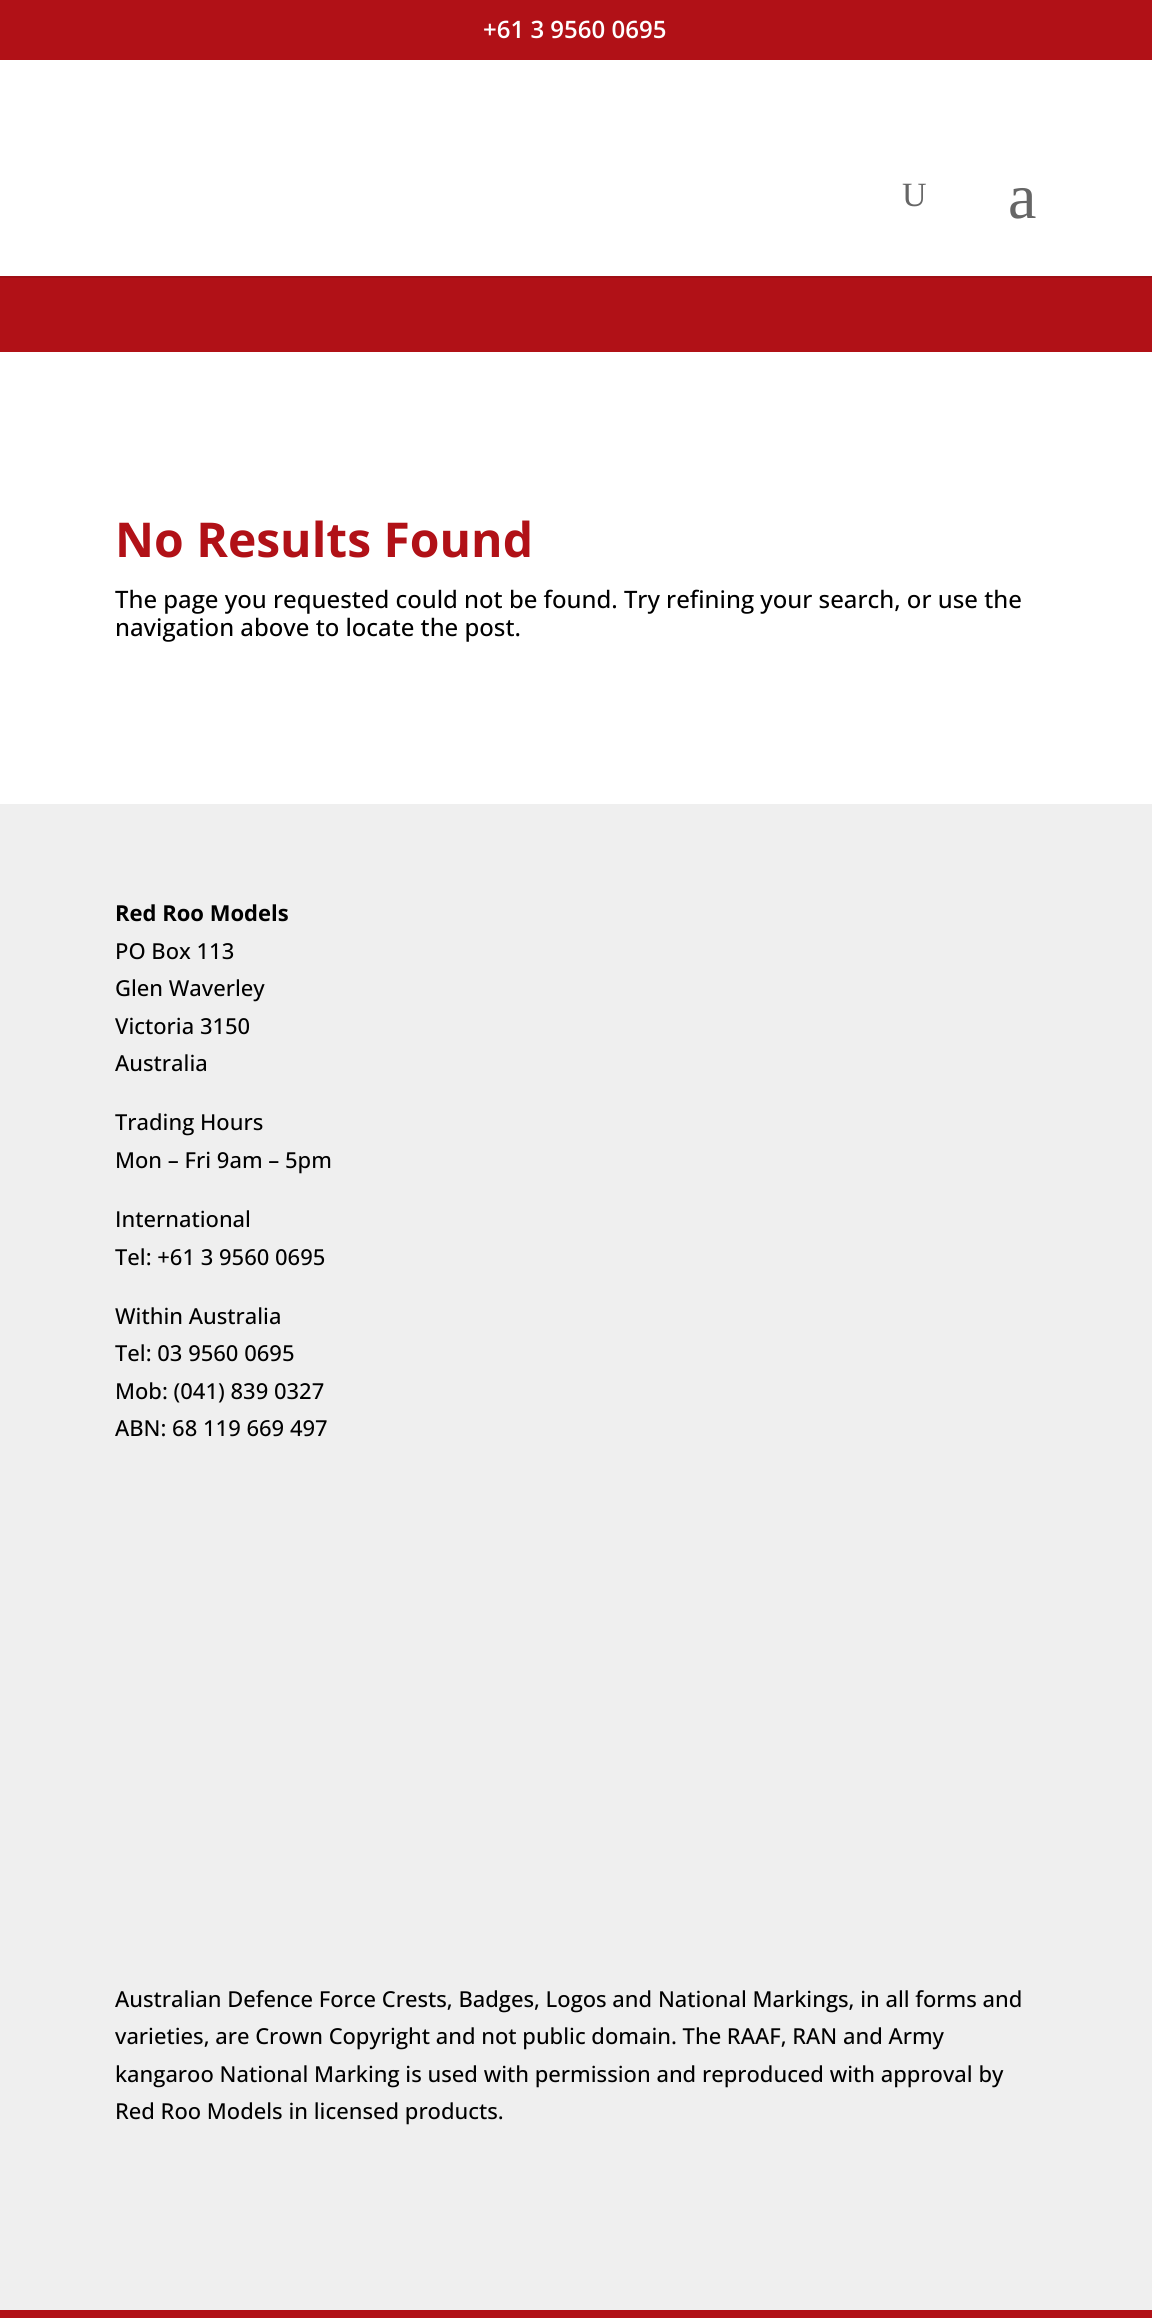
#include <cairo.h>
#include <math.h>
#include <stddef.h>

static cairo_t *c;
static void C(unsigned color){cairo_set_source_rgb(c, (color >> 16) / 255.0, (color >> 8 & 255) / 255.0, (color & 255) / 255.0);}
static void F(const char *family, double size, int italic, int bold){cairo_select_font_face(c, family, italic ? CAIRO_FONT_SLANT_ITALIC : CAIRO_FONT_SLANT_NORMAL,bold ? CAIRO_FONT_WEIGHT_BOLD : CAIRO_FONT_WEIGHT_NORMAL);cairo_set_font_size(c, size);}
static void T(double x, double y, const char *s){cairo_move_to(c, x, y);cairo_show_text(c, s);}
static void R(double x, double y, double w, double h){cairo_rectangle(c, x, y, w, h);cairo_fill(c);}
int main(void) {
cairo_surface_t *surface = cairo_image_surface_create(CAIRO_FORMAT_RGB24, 1152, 2318);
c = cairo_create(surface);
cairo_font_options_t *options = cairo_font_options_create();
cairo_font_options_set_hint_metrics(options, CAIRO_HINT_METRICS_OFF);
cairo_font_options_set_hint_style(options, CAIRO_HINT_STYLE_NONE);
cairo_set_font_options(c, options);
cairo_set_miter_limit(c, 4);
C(0xffffff);
cairo_paint(c);
C(0xb11117);
R(0,0,1152,60);
F("Open Sans SemiBold",24,0,0);
C(0xffffff);
T(483,38,"+61 3 9560 0695");
C(0x9f0f15);
R(0,276,1152,2);
F("Liberation Serif",34,0,0);
C(0x666666);
T(902,206,"U");
F("Liberation Serif",64,0,0);
T(1008,218,"a");
C(0xb11117);
R(0,278,1152,74);
F("Open Sans",48,0,1);
T(115,557,"No Results Found");
F("Open Sans Medium",24,0,0);
C(0x000000);
T(115,608,"The page you requested could not be found. Try refining your search, or use the");
T(115,636,"navigation above to locate the post.");
C(0xefefef);
R(0,804,1152,1506);
F("Open Sans",22,0,1);
C(0x000000);
T(115,921,"Red Roo Models");
F("Open Sans Medium",22,0,0);
T(115,959,"PO Box 113");
T(115,996,"Glen Waverley");
T(115,1034,"Victoria 3150");
T(115,1071,"Australia");
T(115,1130,"Trading Hours");
T(115,1168,"Mon – Fri 9am – 5pm");
T(115,1227,"International");
T(115,1265,"Tel: +61 3 9560 0695");
T(115,1324,"Within Australia");
T(115,1361,"Tel: 03 9560 0695");
T(115,1399,"Mob: (041) 839 0327");
T(115,1436,"ABN: 68 119 669 497");
T(115,2007,"Australian Defence Force Crests, Badges, Logos and National Markings, in all forms and");
T(115,2044,"varieties, are Crown Copyright and not public domain. The RAAF, RAN and Army");
T(115,2082,"kangaroo National Marking is used with permission and reproduced with approval by");
T(115,2119,"Red Roo Models in licensed products.");
C(0xb11117);
R(0,2310,1152,8);
cairo_surface_write_to_png(surface, "o.png");
cairo_font_options_destroy(options);
cairo_destroy(c);
cairo_surface_destroy(surface);
return 0;
}
